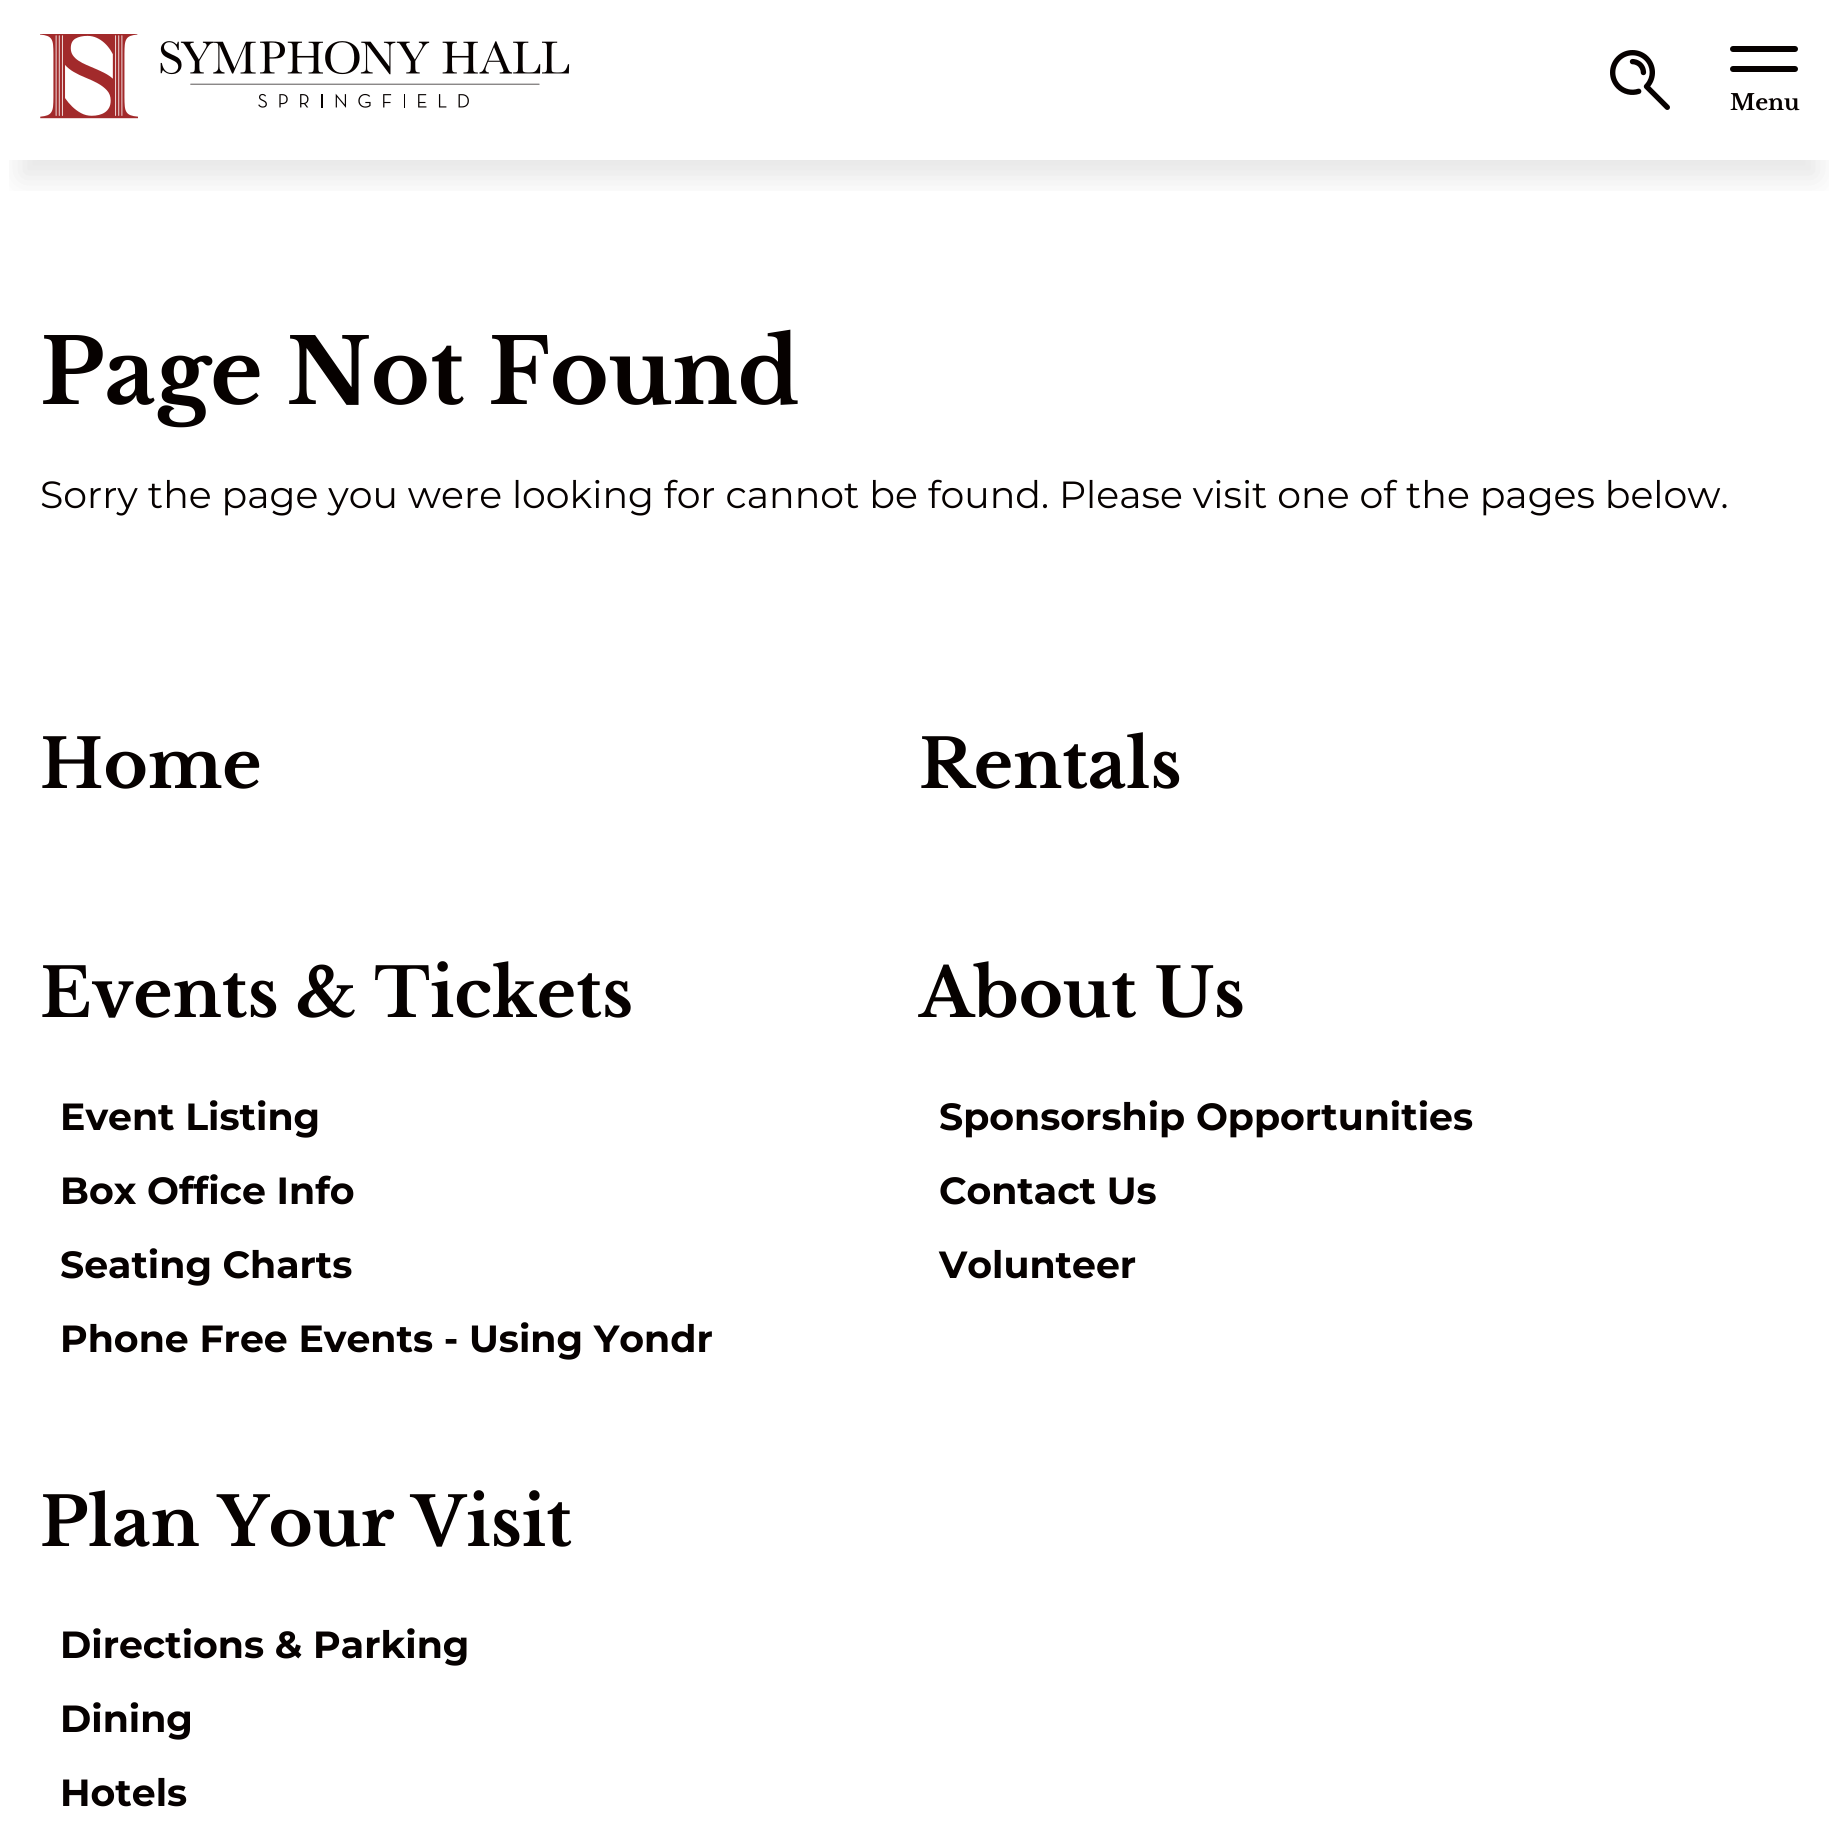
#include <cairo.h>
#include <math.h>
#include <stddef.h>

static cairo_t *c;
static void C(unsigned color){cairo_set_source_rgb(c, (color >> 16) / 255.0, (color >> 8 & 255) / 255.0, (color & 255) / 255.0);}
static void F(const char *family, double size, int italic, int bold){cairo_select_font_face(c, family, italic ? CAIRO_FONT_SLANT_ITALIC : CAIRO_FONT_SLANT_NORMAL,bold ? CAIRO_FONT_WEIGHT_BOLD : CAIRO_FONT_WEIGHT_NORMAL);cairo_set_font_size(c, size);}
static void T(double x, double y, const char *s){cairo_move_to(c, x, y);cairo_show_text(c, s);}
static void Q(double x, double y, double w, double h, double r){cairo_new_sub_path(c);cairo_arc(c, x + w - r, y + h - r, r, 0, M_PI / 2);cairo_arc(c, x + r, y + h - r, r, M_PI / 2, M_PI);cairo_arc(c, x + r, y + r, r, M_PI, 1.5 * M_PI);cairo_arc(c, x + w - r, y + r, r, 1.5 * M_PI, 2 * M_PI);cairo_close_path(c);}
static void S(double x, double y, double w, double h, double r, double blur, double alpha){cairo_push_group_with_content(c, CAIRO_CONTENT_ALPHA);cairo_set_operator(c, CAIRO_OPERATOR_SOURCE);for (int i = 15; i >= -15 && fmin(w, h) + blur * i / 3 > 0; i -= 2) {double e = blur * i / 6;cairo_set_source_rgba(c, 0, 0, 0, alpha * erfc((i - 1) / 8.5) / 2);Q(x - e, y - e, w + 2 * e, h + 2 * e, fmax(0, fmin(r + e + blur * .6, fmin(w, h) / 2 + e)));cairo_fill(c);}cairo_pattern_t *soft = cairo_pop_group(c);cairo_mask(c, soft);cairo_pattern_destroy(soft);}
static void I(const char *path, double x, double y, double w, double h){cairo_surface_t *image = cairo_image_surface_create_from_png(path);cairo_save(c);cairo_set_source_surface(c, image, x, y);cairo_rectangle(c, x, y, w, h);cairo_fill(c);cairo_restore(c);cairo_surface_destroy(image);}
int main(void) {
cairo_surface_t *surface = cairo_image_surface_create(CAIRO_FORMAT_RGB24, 1837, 1841);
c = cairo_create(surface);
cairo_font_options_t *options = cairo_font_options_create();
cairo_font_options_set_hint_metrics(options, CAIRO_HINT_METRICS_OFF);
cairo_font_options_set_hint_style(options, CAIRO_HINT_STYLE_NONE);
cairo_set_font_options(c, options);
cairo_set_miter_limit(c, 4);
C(0xffffff);
cairo_paint(c);
cairo_save(c);
cairo_rectangle(c,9,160,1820,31);
cairo_clip(c);
C(0x000000);
S(20,58,1798,120,0,15,.1);
cairo_restore(c);
I("1.png",40,34,530,85);
I("2.png",1610,50,60,60);
C(0x060100);
Q(1730,46,68,6,3);
cairo_fill(c);
Q(1730,66,68,6,3);
cairo_fill(c);
F("Libre Baskerville",22,0,1);
T(1730,110,"Menu");
F("Libre Baskerville",89.6,0,1);
T(40,404,"Page Not Found");
F("Montserrat",37.85,0,0);
T(40,508,"Sorry the page you were looking for cannot be found. Please visit one of the pages below.");
F("Libre Baskerville",67.25,0,1);
T(40,788,"Home");
T(40,1017,"Events & Tickets");
F("Montserrat",37.85,0,1);
T(60,1130,"Event Listing");
T(60,1204,"Box Office Info");
T(60,1278,"Seating Charts");
T(60,1352,"Phone Free Events - Using Yondr");
F("Libre Baskerville",67.25,0,1);
T(40,1546,"Plan Your Visit");
F("Montserrat",37.85,0,1);
T(60,1658,"Directions & Parking");
T(60,1732,"Dining");
T(60,1806,"Hotels");
F("Libre Baskerville",67.25,0,1);
T(919,788,"Rentals");
T(919,1017,"About Us");
F("Montserrat",37.85,0,1);
T(939,1130,"Sponsorship Opportunities");
T(939,1204,"Contact Us");
T(939,1278,"Volunteer");
cairo_surface_write_to_png(surface, "o.png");
cairo_font_options_destroy(options);
cairo_destroy(c);
cairo_surface_destroy(surface);
return 0;
}
